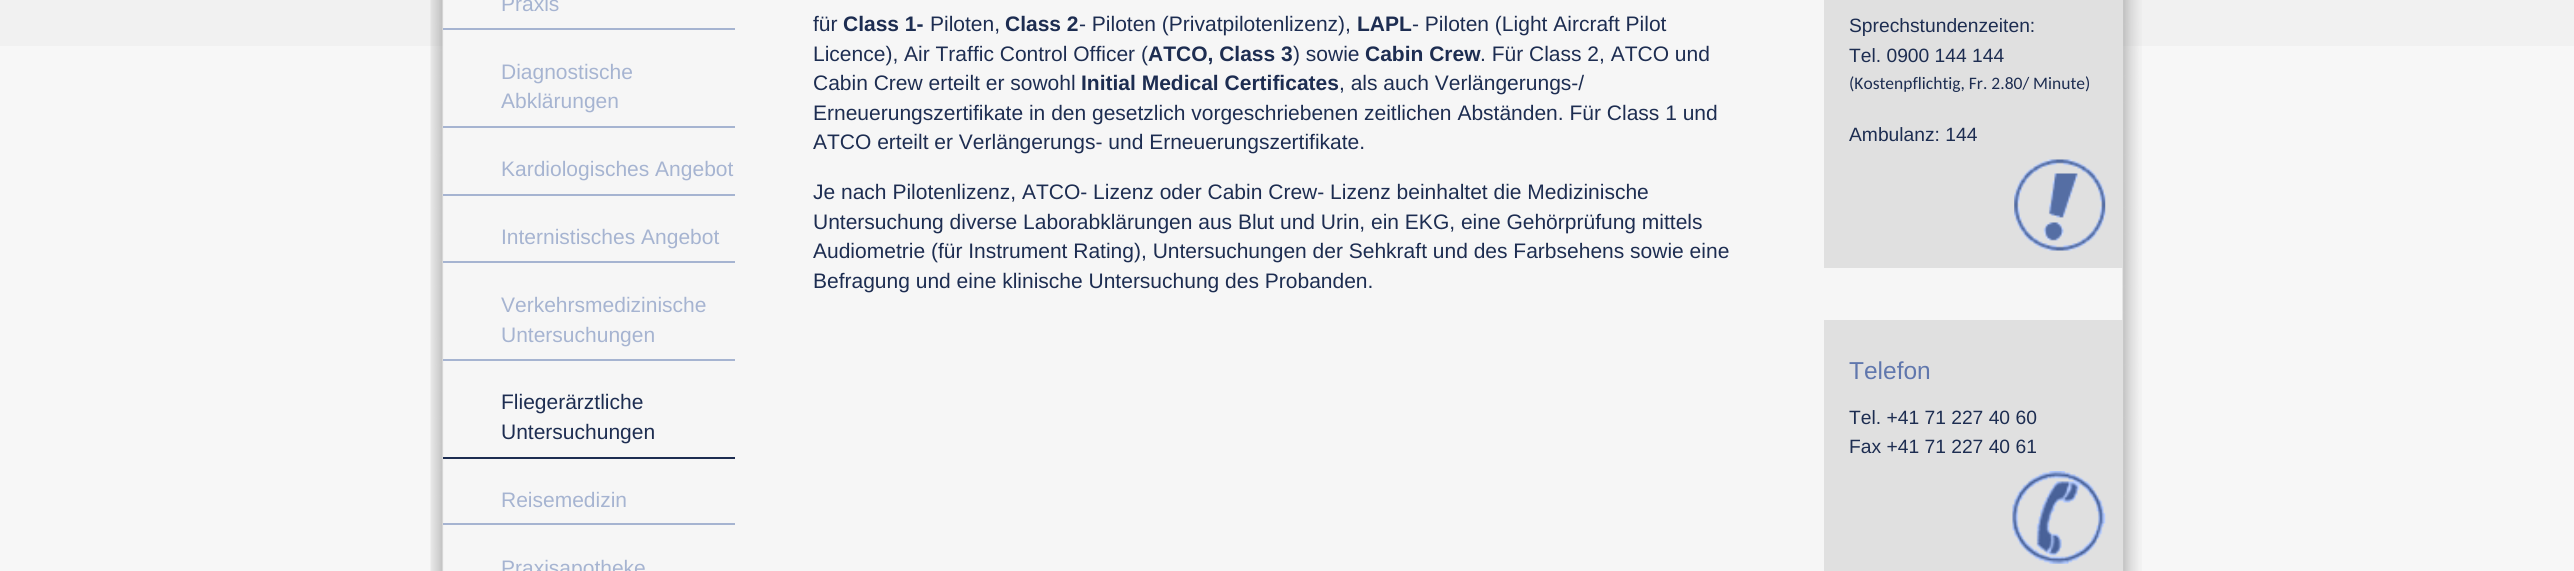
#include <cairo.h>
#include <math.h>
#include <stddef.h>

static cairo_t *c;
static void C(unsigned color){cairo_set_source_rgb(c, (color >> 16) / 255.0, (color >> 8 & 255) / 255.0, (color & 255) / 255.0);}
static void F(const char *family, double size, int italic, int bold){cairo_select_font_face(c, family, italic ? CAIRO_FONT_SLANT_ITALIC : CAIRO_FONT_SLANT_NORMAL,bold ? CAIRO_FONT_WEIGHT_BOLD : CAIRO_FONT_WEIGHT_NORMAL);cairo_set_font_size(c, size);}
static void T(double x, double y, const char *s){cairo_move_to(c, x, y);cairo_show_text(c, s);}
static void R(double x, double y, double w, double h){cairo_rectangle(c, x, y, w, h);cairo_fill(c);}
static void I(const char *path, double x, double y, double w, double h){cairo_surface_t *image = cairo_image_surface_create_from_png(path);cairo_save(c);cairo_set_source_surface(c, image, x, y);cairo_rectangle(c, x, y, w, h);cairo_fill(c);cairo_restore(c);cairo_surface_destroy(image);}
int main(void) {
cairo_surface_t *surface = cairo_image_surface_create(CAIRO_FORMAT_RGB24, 2574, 571);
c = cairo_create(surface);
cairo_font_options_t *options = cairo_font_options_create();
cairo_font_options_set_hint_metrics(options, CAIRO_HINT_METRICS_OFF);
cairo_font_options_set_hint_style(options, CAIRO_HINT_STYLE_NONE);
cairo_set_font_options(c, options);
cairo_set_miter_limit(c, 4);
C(0xf7f7f7);
cairo_paint(c);
C(0xf1f1f1);
R(0,0,2574,46);
I("1.png",430,0,1712,571);
C(0xa6b4d1);
R(443,28,292,2);
F("Liberation Sans",21,0,0);
T(501,11,"Praxis");
R(443,126,292,2);
T(501,79,"Diagnostische");
T(501,108,"Abklärungen");
R(443,194,292,2);
T(501,176,"Kardiologisches Angebot");
R(443,261,292,2);
T(501,244,"Internistisches Angebot");
R(443,359,292,2);
T(501,312,"Verkehrsmedizinische");
T(501,342,"Untersuchungen");
C(0x1d2d51);
R(443,457,292,2);
T(501,409,"Fliegerärztliche");
T(501,439,"Untersuchungen");
C(0xa6b4d1);
R(443,523,292,2);
T(501,507,"Reisemedizin");
T(501,575,"Praxisapotheke");
C(0x1d2d51);
T(813,31,"für");
F("Liberation Sans",21,0,1);
T(843,31,"Class 1-");
F("Liberation Sans",21,0,0);
T(930,31,"Piloten,");
F("Liberation Sans",21,0,1);
T(1005,31,"Class 2");
F("Liberation Sans",21,0,0);
T(1079,31,"- Piloten (Privatpilotenlizenz),");
F("Liberation Sans",21,0,1);
T(1357,31,"LAPL");
F("Liberation Sans",21,0,0);
T(1412,31,"- Piloten (Light Aircraft Pilot");
T(813,61,"Licence), Air Traffic Control Officer (");
F("Liberation Sans",21,0,1);
T(1148,61,"ATCO, Class 3");
F("Liberation Sans",21,0,0);
T(1293,61,") sowie");
F("Liberation Sans",21,0,1);
T(1365,61,"Cabin Crew");
F("Liberation Sans",21,0,0);
T(1480,61,". Für Class 2, ATCO und");
T(813,90,"Cabin Crew erteilt er sowohl");
F("Liberation Sans",21,0,1);
T(1081,90,"Initial Medical Certificates");
F("Liberation Sans",21,0,0);
T(1339,90,", als auch Verlängerungs-/");
T(813,120,"Erneuerungszertifikate in den gesetzlich vorgeschriebenen zeitlichen Abständen. Für Class 1 und");
T(813,149,"ATCO erteilt er Verlängerungs- und Erneuerungszertifikate.");
T(813,199,"Je nach Pilotenlizenz, ATCO- Lizenz oder Cabin Crew- Lizenz beinhaltet die Medizinische");
T(813,229,"Untersuchung diverse Laborabklärungen aus Blut und Urin, ein EKG, eine Gehörprüfung mittels");
T(813,258,"Audiometrie (für Instrument Rating), Untersuchungen der Sehkraft und des Farbsehens sowie eine");
T(813,288,"Befragung und eine klinische Untersuchung des Probanden.");
C(0xe0e0e0);
R(1824,0,299,268);
F("Liberation Sans",19.25,0,0);
C(0x1d2d51);
T(1849,32,"Sprechstundenzeiten:");
T(1849,62,"Tel. 0900 144 144");
F("Carlito",17.5,0,0);
T(1849,89,"(Kostenpflichtig, Fr. 2.80/ Minute)");
F("Liberation Sans",19.25,0,0);
T(1849,141,"Ambulanz: 144");
I("2.png",2014,159,92,92);
C(0xe0e0e0);
R(1824,320,299,251);
F("Liberation Sans",24.5,0,0);
C(0x6077ad);
T(1849,379,"Telefon");
F("Liberation Sans",19.25,0,0);
C(0x1d2d51);
T(1849,424,"Tel. +41 71 227 40 60");
T(1849,453,"Fax +41 71 227 40 61");
I("3.png",2012,471,94,93);
cairo_surface_write_to_png(surface, "o.png");
cairo_font_options_destroy(options);
cairo_destroy(c);
cairo_surface_destroy(surface);
return 0;
}
